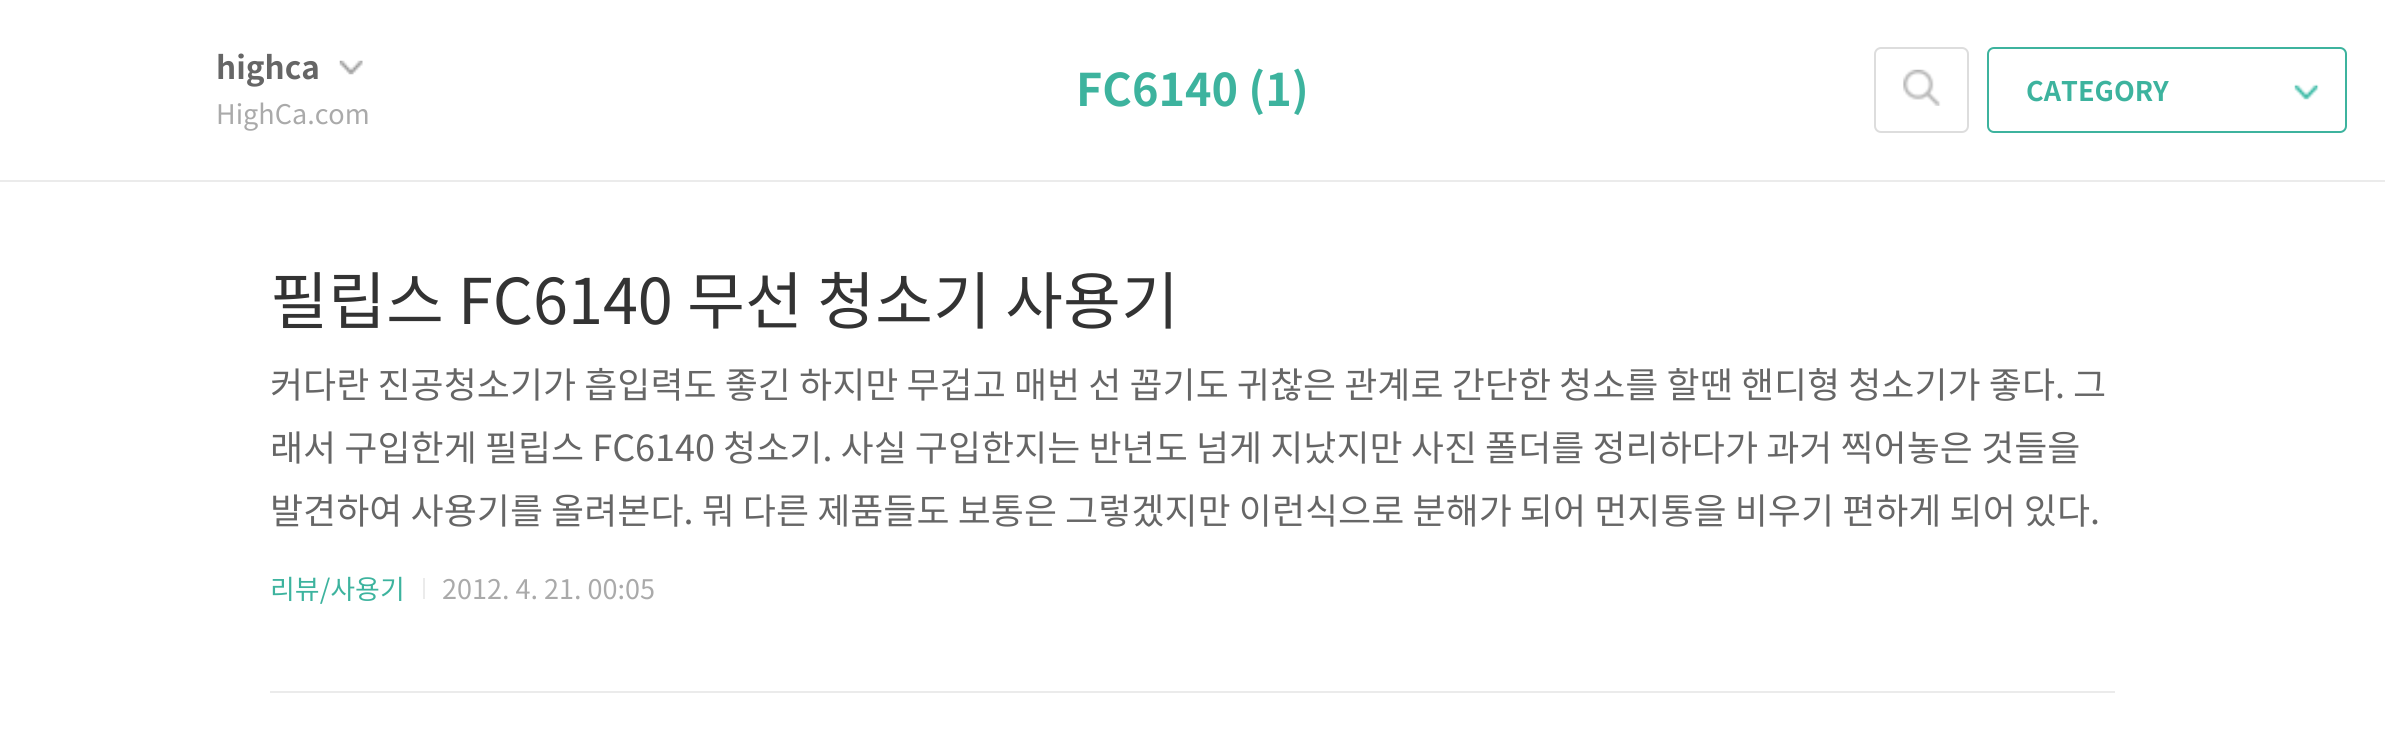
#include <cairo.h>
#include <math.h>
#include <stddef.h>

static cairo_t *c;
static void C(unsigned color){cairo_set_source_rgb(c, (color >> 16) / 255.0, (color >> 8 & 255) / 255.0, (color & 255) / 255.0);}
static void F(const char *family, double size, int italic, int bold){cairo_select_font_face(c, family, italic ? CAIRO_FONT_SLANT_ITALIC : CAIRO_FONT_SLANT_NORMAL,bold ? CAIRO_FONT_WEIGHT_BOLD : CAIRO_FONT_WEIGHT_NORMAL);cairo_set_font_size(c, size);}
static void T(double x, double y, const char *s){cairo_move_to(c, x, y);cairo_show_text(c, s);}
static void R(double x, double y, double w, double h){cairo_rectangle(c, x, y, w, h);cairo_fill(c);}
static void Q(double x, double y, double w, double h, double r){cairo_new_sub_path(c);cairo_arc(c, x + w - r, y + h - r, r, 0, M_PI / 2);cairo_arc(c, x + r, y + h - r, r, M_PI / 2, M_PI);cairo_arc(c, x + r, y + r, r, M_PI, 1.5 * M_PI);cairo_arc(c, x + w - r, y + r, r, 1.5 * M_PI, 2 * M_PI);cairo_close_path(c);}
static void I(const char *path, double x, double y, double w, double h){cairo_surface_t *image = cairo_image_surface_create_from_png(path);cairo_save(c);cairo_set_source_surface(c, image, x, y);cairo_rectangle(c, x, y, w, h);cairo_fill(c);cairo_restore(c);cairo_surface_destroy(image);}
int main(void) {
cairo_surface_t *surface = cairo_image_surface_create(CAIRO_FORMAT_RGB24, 2385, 741);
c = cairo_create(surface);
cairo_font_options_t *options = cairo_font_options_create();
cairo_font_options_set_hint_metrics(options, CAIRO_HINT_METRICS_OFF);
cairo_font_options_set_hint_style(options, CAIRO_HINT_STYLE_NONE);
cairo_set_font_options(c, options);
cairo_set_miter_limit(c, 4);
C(0xffffff);
cairo_paint(c);
C(0xebebeb);
R(0,180,2385,2);
F("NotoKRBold",31.5,0,1);
C(0x666666);
T(216,79,"highca");
I("1.png",339,60,24,15);
F("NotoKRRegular",27,0,0);
C(0xaaaaaa);
T(216,124,"HighCa.com");
F("NotoKRBold",45,0,1);
C(0x3db39e);
T(1076,106,"FC6140 (1)");
Q(1875,48,93,84,6);
C(0xdddddd);
cairo_stroke(c);
I("2.png",1903,69,38,37);
Q(1988,48,358,84,6);
C(0x3db39e);
cairo_stroke(c);
F("NotoKRBold",27,0,1);
T(2026,101,"CATEGORY");
I("3.png",2294,84,25,16);
C(0xebebeb);
R(270,691,1845,2);
F("NotoKRRegular",63,0,0);
C(0x333333);
T(270,324,"필립스 FC6140 무선 청소기 사용기");
F("NotoKRRegular",36,0,0);
C(0x666666);
T(270,398,"커다란 진공청소기가 흡입력도 좋긴 하지만 무겁고 매번 선 꼽기도 귀찮은 관계로 간단한 청소를 할땐 핸디형 청소기가 좋다. 그");
T(270,461,"래서 구입한게 필립스 FC6140 청소기. 사실 구입한지는 반년도 넘게 지났지만 사진 폴더를 정리하다가 과거 찍어놓은 것들을");
T(270,524,"발견하여 사용기를 올려본다. 뭐 다른 제품들도 보통은 그렇겠지만 이런식으로 분해가 되어 먼지통을 비우기 편하게 되어 있다.");
F("NotoKRRegular",27,0,0);
C(0x3db39e);
T(270,599,"리뷰/사용기");
C(0xebebeb);
R(423,578,2,21);
C(0xaaaaaa);
T(442,599,"2012. 4. 21. 00:05");
cairo_surface_write_to_png(surface, "o.png");
cairo_font_options_destroy(options);
cairo_destroy(c);
cairo_surface_destroy(surface);
return 0;
}
